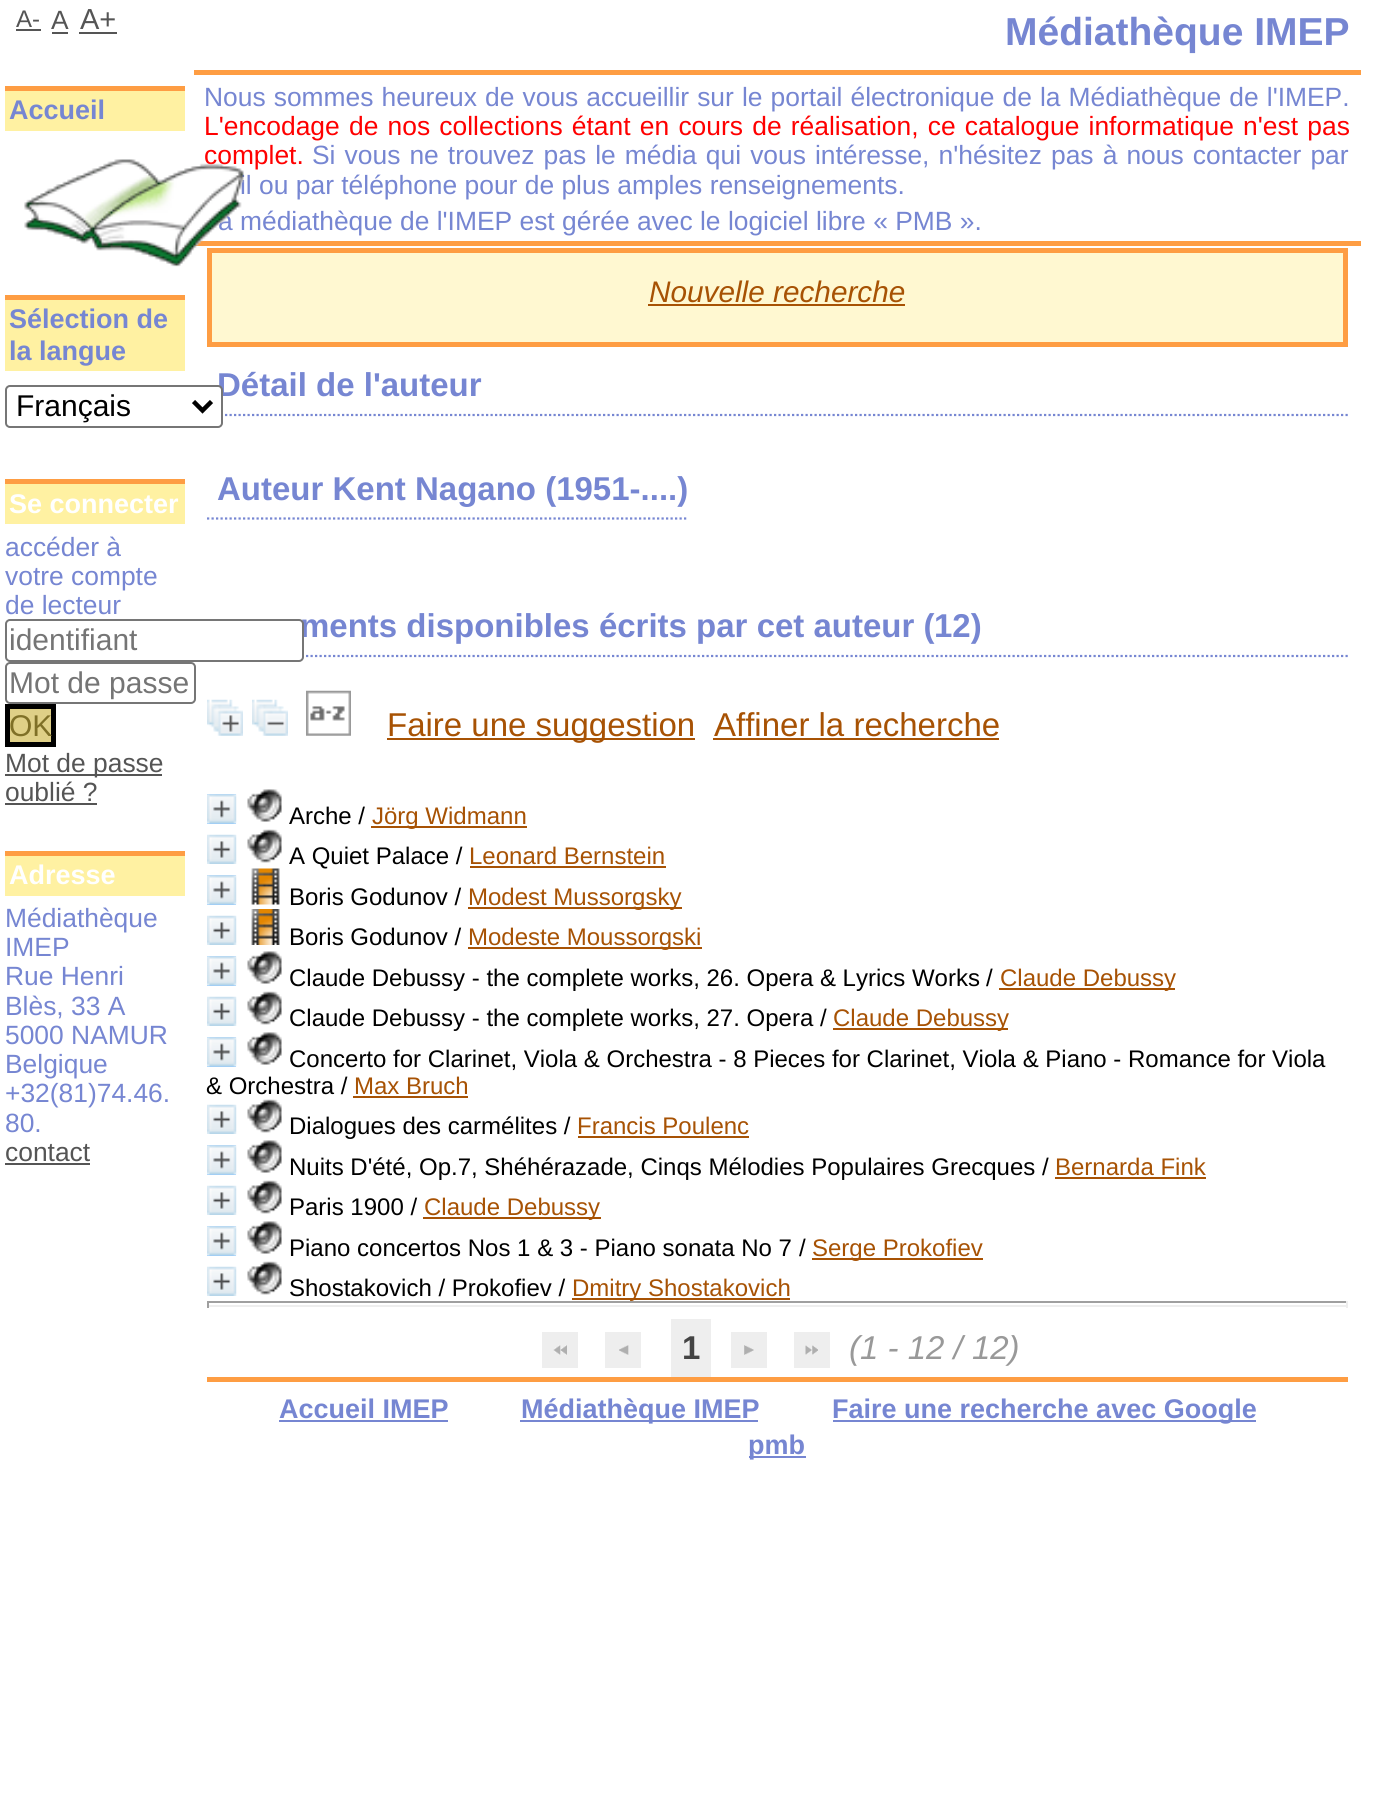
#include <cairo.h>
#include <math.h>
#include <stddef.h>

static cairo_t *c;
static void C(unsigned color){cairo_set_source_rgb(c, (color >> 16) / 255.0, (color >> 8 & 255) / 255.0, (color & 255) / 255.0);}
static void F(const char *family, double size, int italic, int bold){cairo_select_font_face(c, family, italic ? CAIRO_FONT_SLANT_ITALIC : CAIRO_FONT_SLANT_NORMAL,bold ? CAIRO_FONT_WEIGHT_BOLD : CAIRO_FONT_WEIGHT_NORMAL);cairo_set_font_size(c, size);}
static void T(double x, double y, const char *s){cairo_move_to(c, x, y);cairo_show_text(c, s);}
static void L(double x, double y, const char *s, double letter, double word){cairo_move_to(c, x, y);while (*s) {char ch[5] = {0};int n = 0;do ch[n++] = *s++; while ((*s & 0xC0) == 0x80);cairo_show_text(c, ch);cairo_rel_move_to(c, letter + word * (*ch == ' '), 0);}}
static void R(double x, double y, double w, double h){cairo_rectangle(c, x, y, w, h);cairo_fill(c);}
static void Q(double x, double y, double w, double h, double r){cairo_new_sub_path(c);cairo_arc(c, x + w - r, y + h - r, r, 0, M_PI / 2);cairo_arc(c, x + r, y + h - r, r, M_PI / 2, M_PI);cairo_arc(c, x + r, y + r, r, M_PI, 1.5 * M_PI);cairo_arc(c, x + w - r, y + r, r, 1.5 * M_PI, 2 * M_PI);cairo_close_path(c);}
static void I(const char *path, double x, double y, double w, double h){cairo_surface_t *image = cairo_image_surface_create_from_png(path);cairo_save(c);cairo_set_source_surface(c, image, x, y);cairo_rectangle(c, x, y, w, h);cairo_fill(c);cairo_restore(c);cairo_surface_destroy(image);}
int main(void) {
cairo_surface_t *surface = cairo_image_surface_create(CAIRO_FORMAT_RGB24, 1374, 1816);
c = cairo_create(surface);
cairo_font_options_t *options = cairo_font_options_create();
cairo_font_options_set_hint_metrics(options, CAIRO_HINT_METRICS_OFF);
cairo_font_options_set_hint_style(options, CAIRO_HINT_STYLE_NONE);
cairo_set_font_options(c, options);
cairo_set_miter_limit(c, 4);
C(0xffffff);
cairo_paint(c);
F("Liberation Sans",24,0,0);
C(0x555555);
T(16,27,"A-");
R(16,29,25,2);
F("Liberation Sans",26.4,0,0);
T(51,29,"A");
R(52,32,16,2);
F("Liberation Sans",29,0,0);
T(80,29,"A+");
R(79,32,38,2);
C(0xfff1a2);
R(5,91,180,40);
C(0xfe9d43);
R(5,86,180,5);
F("Liberation Sans",27,0,1);
C(0x7686d2);
T(9,119,"Accueil");
C(0xfe9d43);
R(194,241,1167,5);
F("Liberation Sans",26.4,0,0);
C(0xff0000);
T(204,164,"complet.");
C(0x7686d2);
T(240,194,"il ou par téléphone pour de plus amples renseignements.");
T(218,230,"a médiathèque de l'IMEP est gérée avec le logiciel libre « PMB ».");
C(0xfff8d1);
cairo_rectangle(c,209.5,250.5,1136,94);
cairo_fill_preserve(c);
C(0xfe9d43);
cairo_set_line_width(c,5);
cairo_stroke(c);
I("1.png",24,159,220,108);
C(0xfff1a2);
R(5,300,180,71);
C(0xfe9d43);
R(5,295,180,5);
F("Liberation Sans",27,0,1);
C(0x7686d2);
T(9,328,"Sélection de");
T(9,360,"la langue");
cairo_new_path(c);
cairo_move_to(c,207,415);
cairo_line_to(c,1348,415);
cairo_set_line_width(c,2.2);
cairo_set_dash(c,(double[]){2.25,2.25},2,0);
cairo_stroke(c);
F("Liberation Sans",33,0,1);
T(217,396,"Détail de l'auteur");
C(0xffffff);
Q(6,386,216,41,4);
cairo_fill_preserve(c);
C(0x767676);
cairo_set_line_width(c,2);
cairo_set_dash(c,NULL,0,0);
cairo_stroke(c);
cairo_new_path(c);
cairo_move_to(c,193.5,401.5);
cairo_line_to(c,202.5,410.5);
cairo_line_to(c,211.5,401.5);
C(0x000000);
cairo_set_line_width(c,4.5);
cairo_stroke(c);
F("Liberation Sans",30,0,0);
T(16,416,"Français");
C(0xfff1a2);
R(5,484,180,40);
C(0xfe9d43);
R(5,479,180,5);
F("Liberation Sans",27,0,1);
C(0xffffff);
T(9,513,"Se connecter");
F("Liberation Sans",26.4,0,0);
C(0x7686d2);
T(5,556,"accéder à");
T(5,585,"votre compte");
T(5,614,"de lecteur");
cairo_new_path(c);
cairo_move_to(c,207,656);
cairo_line_to(c,1348,656);
cairo_set_line_width(c,2.2);
cairo_set_dash(c,(double[]){2.25,2.25},2,0);
cairo_stroke(c);
F("Liberation Sans",33,0,1);
T(300,637,"ments disponibles écrits par cet auteur (");
C(0xffffff);
Q(6,620,297,41,4);
cairo_fill_preserve(c);
C(0x767676);
cairo_set_line_width(c,2);
cairo_set_dash(c,NULL,0,0);
cairo_stroke(c);
F("Liberation Sans",30,0,0);
C(0x757575);
T(9,650,"identifiant");
Q(6,663,189,40,4);
C(0x767676);
cairo_stroke(c);
C(0x757575);
T(9,693,"Mot de passe");
C(0xdfd087);
cairo_rectangle(c,7.5,706.5,46,38);
cairo_fill_preserve(c);
C(0x000000);
cairo_set_line_width(c,5);
cairo_stroke(c);
C(0x7f7027);
T(9,736,"OK");
C(0x555555);
R(5,774,157,2);
F("Liberation Sans",26.4,0,0);
T(5,772,"Mot de passe");
T(5,801,"oublié ?");
R(5,803,92,2);
C(0xfff1a2);
R(5,856,180,40);
C(0xfe9d43);
R(5,851,180,5);
F("Liberation Sans",27,0,1);
C(0xffffff);
T(9,884,"Adresse");
F("Liberation Sans",26.4,0,0);
C(0x7686d2);
T(5,927,"Médiathèque");
T(5,956,"IMEP");
T(5,985,"Rue Henri");
T(5,1015,"Blès, 33 A");
T(5,1044,"5000 NAMUR");
T(5,1073,"Belgique");
T(5,1102,"+32(81)74.46.");
T(5,1132,"80.");
C(0x555555);
T(5,1161,"contact");
R(5,1163,85,2);
C(0xfe9d43);
R(194,70,1167,5);
F("Liberation Sans",39,0,1);
C(0x7686d2);
T(1005,45,"Médiathèque IMEP");
F("Liberation Sans",26.4,0,0);
L(204,106,"Nous sommes heureux de vous accueillir sur le portail électronique de la Médiathèque de l'IMEP.",0,.75);
C(0xff0000);
L(204,135,"L'encodage de nos collections étant en cours de réalisation, ce catalogue informatique n'est pas",0,1.9);
C(0x7686d2);
L(312,164,"Si vous ne trouvez pas le média qui vous intéresse, n'hésitez pas à nous contacter par",0,1.75);
F("Liberation Sans",29.75,1,0);
C(0xa75204);
T(649,302,"Nouvelle recherche");
R(648,304,257,2);
cairo_new_path(c);
cairo_move_to(c,207,518.5);
cairo_line_to(c,688.5,518.5);
C(0x7686d2);
cairo_set_line_width(c,2.2);
cairo_set_dash(c,(double[]){2.25,2.25},2,0);
cairo_stroke(c);
F("Liberation Sans",33,0,1);
T(217,500,"Auteur Kent Nagano (1951-....)");
T(934,637,"12)");
I("2.png",207,699,36,37);
I("3.png",252,699,36,37);
I("4.png",306,690,45,46);
C(0xa75204);
R(387,738,308,2);
F("Liberation Sans",33,0,0);
T(387,736,"Faire une suggestion");
T(714,736,"Affiner la recherche");
R(713,738,286,2);
C(0x8cc6ff);
R(207,794,29,30);
I("5.png",247,789,35,33);
I("6.png",207,794,30,30);
F("Liberation Sans",24,0,0);
C(0x000000);
T(289,824,"Arche /");
C(0xa75204);
R(371,826,156,2);
T(372,824,"Jörg Widmann");
I("7.png",207,834,30,30);
I("8.png",247,829,35,34);
C(0x000000);
T(289,864,"A Quiet Palace /");
C(0xa75204);
T(469,864,"Leonard Bernstein");
R(470,866,196,2);
C(0x8cc6ff);
R(207,875,29,30);
I("9.png",251,868,29,37);
I("6.png",207,875,30,30);
C(0x000000);
T(289,905,"Boris Godunov /");
C(0xa75204);
R(468,907,214,2);
T(468,905,"Modest Mussorgsky");
I("7.png",207,915,30,30);
I("10.png",251,909,29,36);
C(0x000000);
T(289,945,"Boris Godunov /");
C(0xa75204);
R(468,947,234,2);
T(468,945,"Modeste Moussorgski");
C(0x8cc6ff);
R(207,956,29,30);
I("5.png",247,951,35,33);
I("6.png",207,956,30,30);
C(0x000000);
T(289,986,"Claude Debussy - the complete works, 26. Opera & Lyrics Works");
T(986,986,"/");
C(0xa75204);
R(999,988,176,2);
T(1000,986,"Claude Debussy");
I("7.png",207,996,30,30);
I("11.png",247,991,35,34);
C(0x000000);
T(289,1026,"Claude Debussy - the complete works, 27. Opera");
T(820,1026,"/");
C(0xa75204);
R(833,1028,175,2);
T(833,1026,"Claude Debussy");
C(0x8cc6ff);
R(207,1037,29,30);
I("5.png",247,1032,35,33);
I("6.png",207,1037,30,30);
C(0x000000);
T(289,1067,"Concerto for Clarinet, Viola & Orchestra - 8 Pieces for Clarinet, Viola & Piano - Romance for Viola");
T(206,1094,"& Orchestra /");
C(0xa75204);
T(354,1094,"Max Bruch");
R(353,1096,115,2);
I("7.png",207,1104,30,30);
I("11.png",247,1099,35,34);
C(0x000000);
T(289,1134,"Dialogues des carmélites /");
C(0xa75204);
T(577,1134,"Francis Poulenc");
R(578,1136,171,2);
C(0x8cc6ff);
R(207,1145,29,30);
I("12.png",247,1140,35,33);
I("13.png",207,1145,30,30);
C(0x000000);
T(289,1175,"Nuits D'été, Op.7, Shéhérazade, Cinqs Mélodies Populaires Grecques /");
C(0xa75204);
T(1055,1175,"Bernarda Fink");
R(1055,1177,151,2);
I("7.png",207,1185,30,30);
I("11.png",247,1180,35,34);
C(0x000000);
T(289,1215,"Paris 1900 /");
C(0xa75204);
R(423,1217,178,2);
T(424,1215,"Claude Debussy");
C(0x8cc6ff);
R(207,1226,29,30);
I("5.png",247,1221,35,33);
I("6.png",207,1226,30,30);
C(0x000000);
T(289,1256,"Piano concertos Nos 1 & 3 - Piano sonata No 7");
T(799,1256,"/");
C(0xa75204);
R(812,1258,171,2);
T(812,1256,"Serge Prokofiev");
I("7.png",207,1266,30,30);
I("11.png",247,1261,35,34);
C(0x000000);
T(289,1296,"Shostakovich / Prokofiev /");
C(0xa75204);
R(572,1298,218,2);
T(572,1296,"Dmitry Shostakovich");
C(0x9f9f9f);
R(207,1301,1141,2);
C(0xeeeeee);
R(1346,1301,2,7);
R(207,1305,1141,2);
C(0x9f9f9f);
R(207,1301,2,7);
C(0xeeeeee);
R(542,1332,36,36);
I("14.png",553,1345,14,10);
R(605,1332,36,36);
I("15.png",619,1345,10,10);
R(671,1319,40,58);
F("Liberation Sans",33,0,1);
C(0x444444);
T(682,1359,"1");
C(0xeeeeee);
R(731,1332,36,36);
I("16.png",744,1345,10,10);
R(794,1332,36,36);
I("17.png",805,1345,13,10);
F("Liberation Sans",33,1,0);
C(0x999999);
T(849,1359,"(1 - 12 / 12)");
C(0xfe9d43);
R(207,1377,1141,5);
F("Liberation Sans",27,0,1);
C(0x7686d2);
T(279,1418,"Accueil IMEP");
R(279,1420,169,2);
R(520,1420,238,2);
T(521,1418,"Médiathèque IMEP");
R(833,1420,423,2);
T(832,1418,"Faire une recherche avec Google");
R(749,1456,57,2);
T(748,1454,"pmb");
cairo_surface_write_to_png(surface, "o.png");
cairo_font_options_destroy(options);
cairo_destroy(c);
cairo_surface_destroy(surface);
return 0;
}
